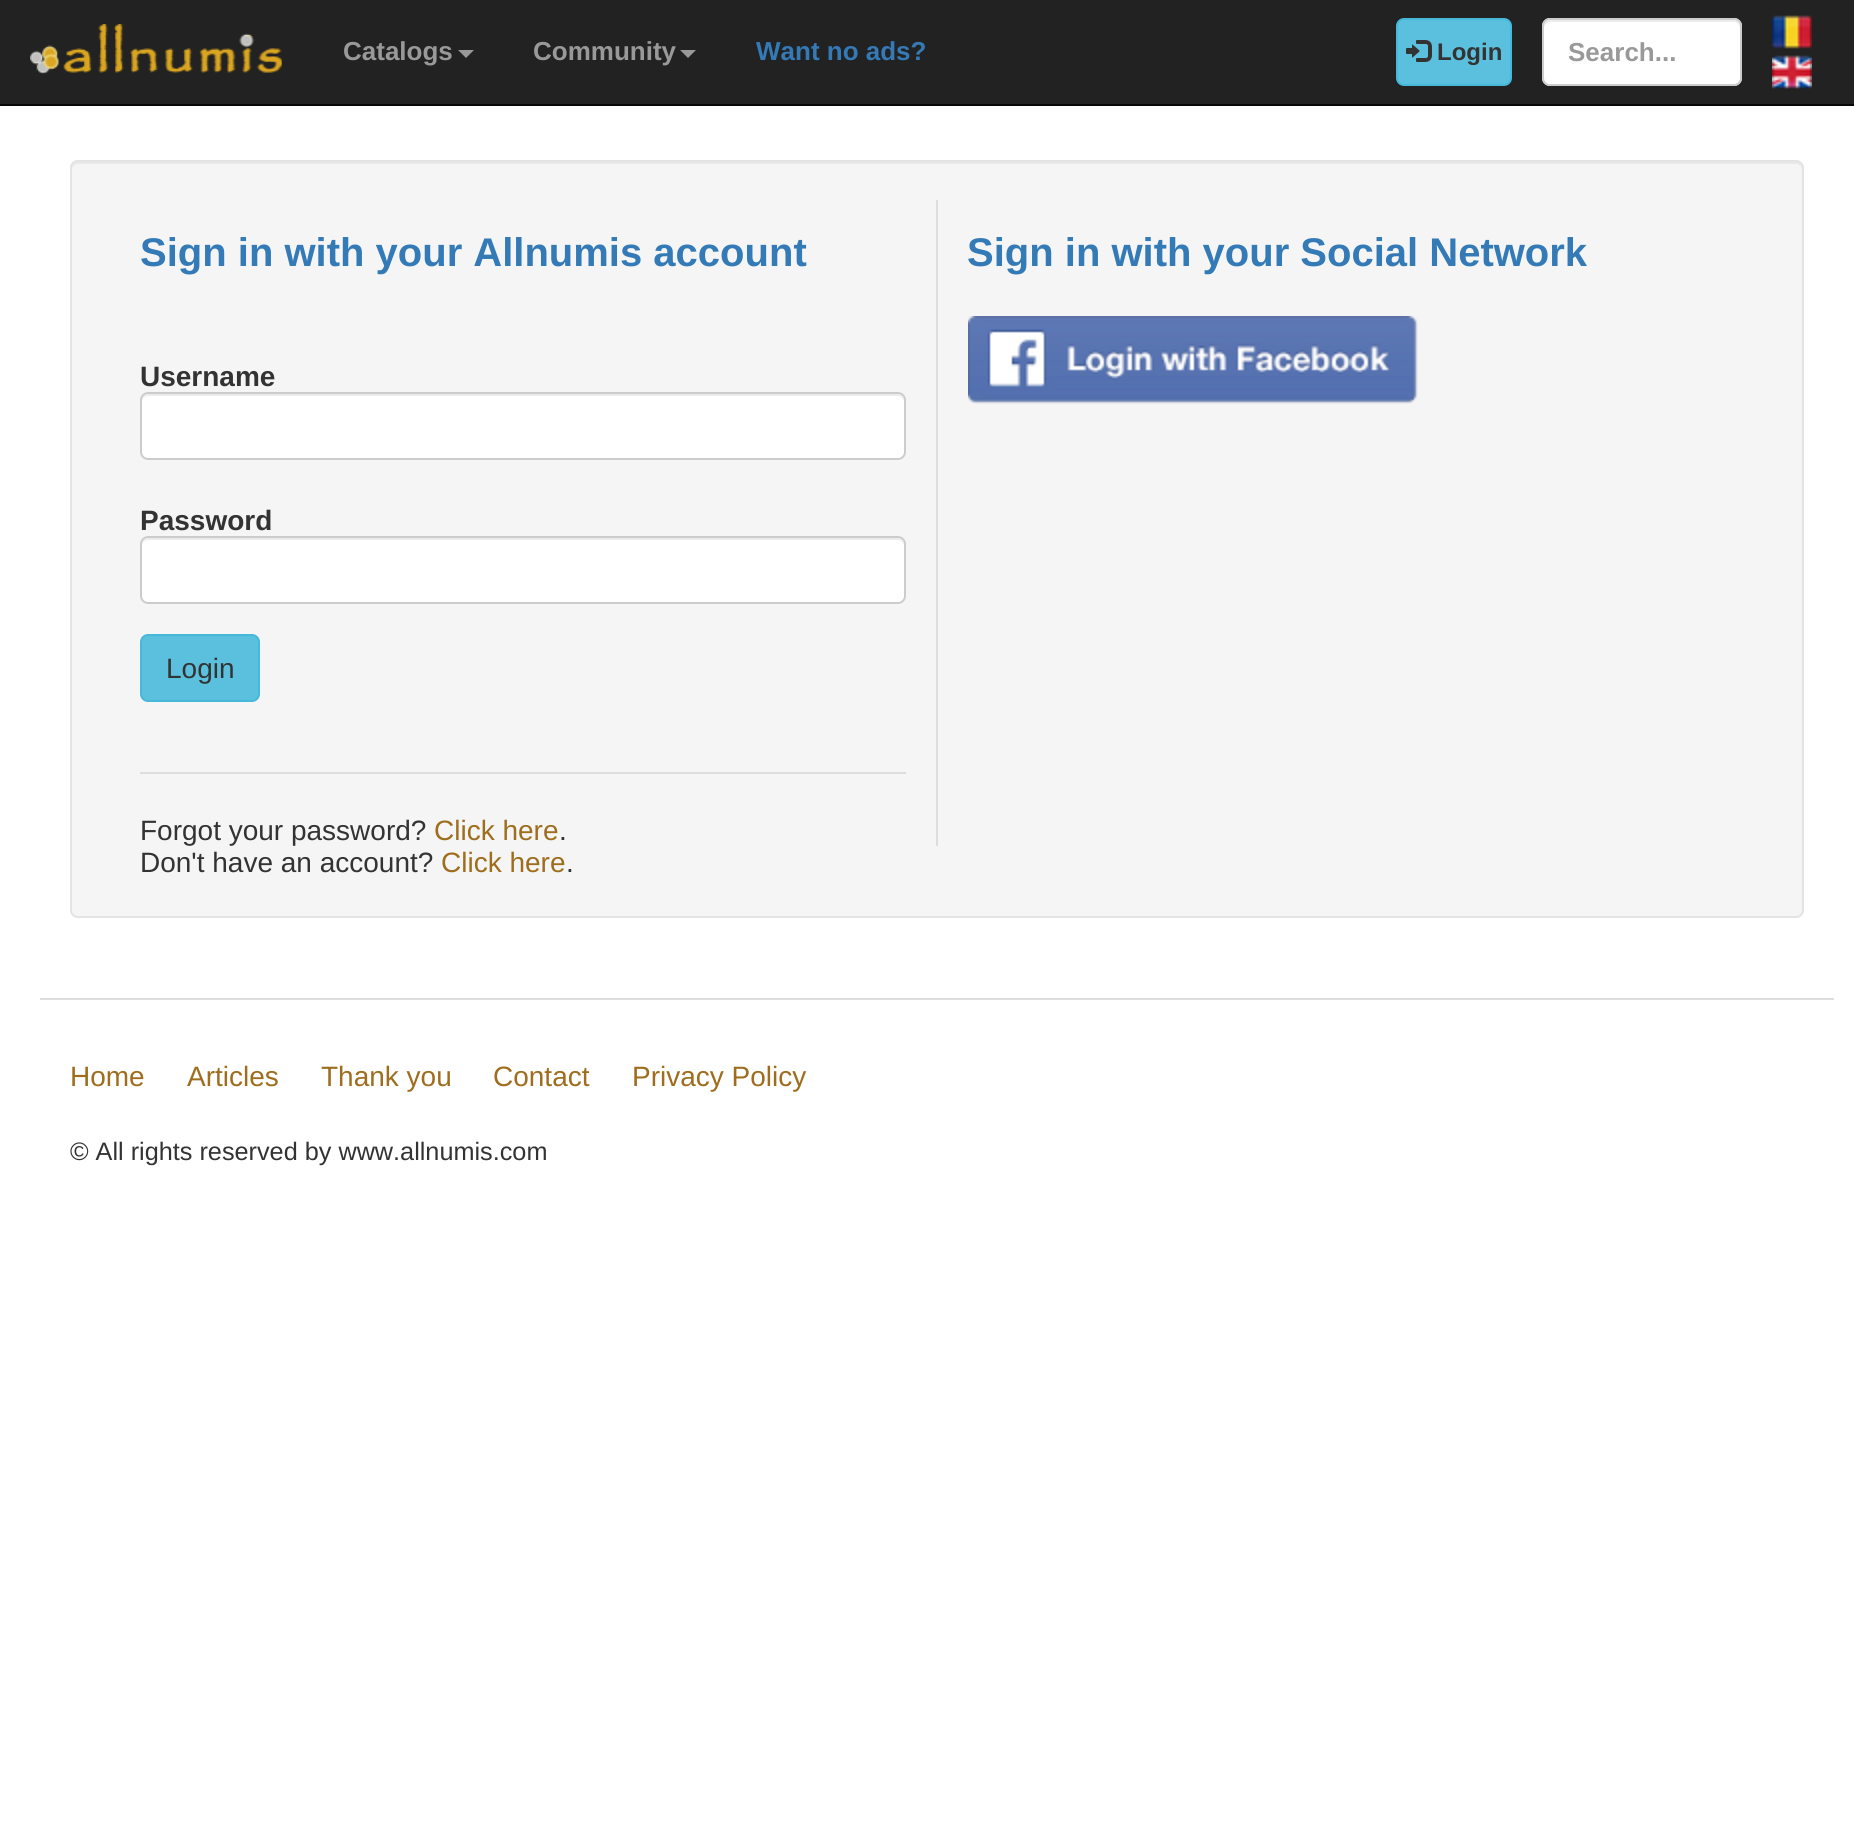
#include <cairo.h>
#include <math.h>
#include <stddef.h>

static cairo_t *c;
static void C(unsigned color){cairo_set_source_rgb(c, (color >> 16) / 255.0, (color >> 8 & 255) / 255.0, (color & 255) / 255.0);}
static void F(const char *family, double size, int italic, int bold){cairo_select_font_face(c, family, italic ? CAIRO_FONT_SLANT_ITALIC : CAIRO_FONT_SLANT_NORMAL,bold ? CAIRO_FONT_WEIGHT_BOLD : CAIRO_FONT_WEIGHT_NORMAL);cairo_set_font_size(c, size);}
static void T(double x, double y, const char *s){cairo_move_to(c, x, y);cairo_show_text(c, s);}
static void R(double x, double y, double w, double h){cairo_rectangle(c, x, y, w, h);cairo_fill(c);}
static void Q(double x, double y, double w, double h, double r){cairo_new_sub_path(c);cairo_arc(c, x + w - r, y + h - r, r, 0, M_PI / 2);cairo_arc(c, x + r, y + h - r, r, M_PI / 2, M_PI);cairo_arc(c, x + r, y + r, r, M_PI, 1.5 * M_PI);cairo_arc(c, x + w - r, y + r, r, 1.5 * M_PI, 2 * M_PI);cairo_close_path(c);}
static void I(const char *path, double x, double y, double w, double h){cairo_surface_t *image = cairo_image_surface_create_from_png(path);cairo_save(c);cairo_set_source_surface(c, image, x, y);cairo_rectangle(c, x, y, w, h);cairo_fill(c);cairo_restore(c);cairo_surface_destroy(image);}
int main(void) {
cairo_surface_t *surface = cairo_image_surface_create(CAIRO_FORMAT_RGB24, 1854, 1833);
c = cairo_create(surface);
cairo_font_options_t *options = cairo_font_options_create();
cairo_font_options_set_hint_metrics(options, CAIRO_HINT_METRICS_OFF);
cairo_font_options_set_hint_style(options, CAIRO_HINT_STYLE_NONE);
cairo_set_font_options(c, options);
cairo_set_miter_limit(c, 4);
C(0xffffff);
cairo_paint(c);
C(0x222222);
R(0,0,1854,104);
C(0x080808);
R(0,104,1854,2);
I("1.png",30,24,252,50);
F("Liberation Sans",26,0,1);
C(0x999999);
T(343,60,"Catalogs");
cairo_new_path(c);
cairo_move_to(c,458,50);
cairo_line_to(c,474,50);
cairo_line_to(c,466,58);
cairo_close_path(c);
cairo_fill(c);
T(533,60,"Community");
cairo_new_path(c);
cairo_move_to(c,680,50);
cairo_line_to(c,696,50);
cairo_line_to(c,688,58);
cairo_close_path(c);
cairo_fill(c);
C(0x337ab7);
T(756,60,"Want no ads?");
C(0x5bc0de);
Q(1397,19,114,66,7);
cairo_fill_preserve(c);
C(0x46b8da);
cairo_stroke(c);
I("2.png",1406,40,26,22);
F("Liberation Sans",24,0,1);
C(0x333333);
T(1437,60,"Login");
C(0xffffff);
Q(1542,18,200,68,8);
cairo_fill(c);
C(0xececec);
cairo_new_path(c);
cairo_move_to(c,1550,22);
cairo_line_to(c,1734,22);
cairo_curve_to(c,1737,22,1740,25,1740,28);
cairo_line_to(c,1740,26);
cairo_curve_to(c,1740,23,1737,20,1734,20);
cairo_line_to(c,1550,20);
cairo_curve_to(c,1547,20,1544,23,1544,26);
cairo_line_to(c,1544,28);
cairo_curve_to(c,1544,25,1547,22,1550,22);
cairo_close_path(c);
cairo_fill(c);
Q(1543,19,198,66,7);
C(0xcccccc);
cairo_stroke(c);
F("Liberation Sans",26,0,1);
C(0x999999);
T(1568,61,"Search...");
I("3.png",1772,15,40,34);
I("4.png",1772,55,40,34);
C(0xf5f5f5);
Q(70,160,1734,758,8);
cairo_fill(c);
C(0xe9e9e9);
cairo_new_path(c);
cairo_move_to(c,78,164);
cairo_line_to(c,1796,164);
cairo_curve_to(c,1799,164,1802,167,1802,170);
cairo_curve_to(c,1802,166,1801,162,1796,162);
cairo_line_to(c,78,162);
cairo_curve_to(c,73,162,72,166,72,170);
cairo_curve_to(c,72,167,75,164,78,164);
cairo_close_path(c);
cairo_fill(c);
Q(71,161,1732,756,7);
C(0xe3e3e3);
cairo_stroke(c);
C(0xdddddd);
R(936,200,2,646);
F("Liberation Sans",40,0,1);
C(0x337ab7);
T(140,266,"Sign in with your Allnumis account");
F("Liberation Sans",28,0,1);
C(0x333333);
T(140,386,"Username");
C(0xffffff);
Q(140,392,766,68,8);
cairo_fill(c);
C(0xececec);
cairo_new_path(c);
cairo_move_to(c,148,396);
cairo_line_to(c,898,396);
cairo_curve_to(c,901,396,904,399,904,402);
cairo_line_to(c,904,400);
cairo_curve_to(c,904,397,901,394,898,394);
cairo_line_to(c,148,394);
cairo_curve_to(c,145,394,142,397,142,400);
cairo_line_to(c,142,402);
cairo_curve_to(c,142,399,145,396,148,396);
cairo_close_path(c);
cairo_fill(c);
Q(141,393,764,66,7);
C(0xcccccc);
cairo_stroke(c);
C(0x333333);
T(140,530,"Password");
C(0xffffff);
Q(140,536,766,68,8);
cairo_fill(c);
C(0xececec);
cairo_new_path(c);
cairo_move_to(c,148,540);
cairo_line_to(c,898,540);
cairo_curve_to(c,901,540,904,543,904,546);
cairo_line_to(c,904,544);
cairo_curve_to(c,904,541,901,538,898,538);
cairo_line_to(c,148,538);
cairo_curve_to(c,145,538,142,541,142,544);
cairo_line_to(c,142,546);
cairo_curve_to(c,142,543,145,540,148,540);
cairo_close_path(c);
cairo_fill(c);
Q(141,537,764,66,7);
C(0xcccccc);
cairo_stroke(c);
C(0x5bc0de);
Q(141,635,118,66,7);
cairo_fill_preserve(c);
C(0x46b8da);
cairo_stroke(c);
F("Liberation Sans",28,0,0);
C(0x333333);
T(166,678,"Login");
C(0xdddddd);
R(140,772,766,2);
C(0x333333);
T(140,840,"Forgot your password?");
C(0x9e6d1d);
T(434,840,"Click here");
C(0x333333);
T(559,840,".");
F("Liberation Sans",40,0,1);
C(0x337ab7);
T(967,266,"Sign in with your Social Network");
I("5.png",968,316,450,88);
F("Liberation Sans",28,0,0);
C(0x333333);
T(140,872,"Don't have an account?");
C(0x9e6d1d);
T(441,872,"Click here");
C(0x333333);
T(566,872,".");
C(0xdddddd);
R(40,998,1794,2);
C(0x9e6d1d);
T(70,1086,"Home");
T(187,1086,"Articles");
T(321,1086,"Thank you");
T(493,1086,"Contact");
T(632,1086,"Privacy Policy");
F("Liberation Sans",25.25,0,0);
C(0x333333);
T(70,1160,"© All rights reserved by www.allnumis.com");
cairo_surface_write_to_png(surface, "o.png");
cairo_font_options_destroy(options);
cairo_destroy(c);
cairo_surface_destroy(surface);
return 0;
}
